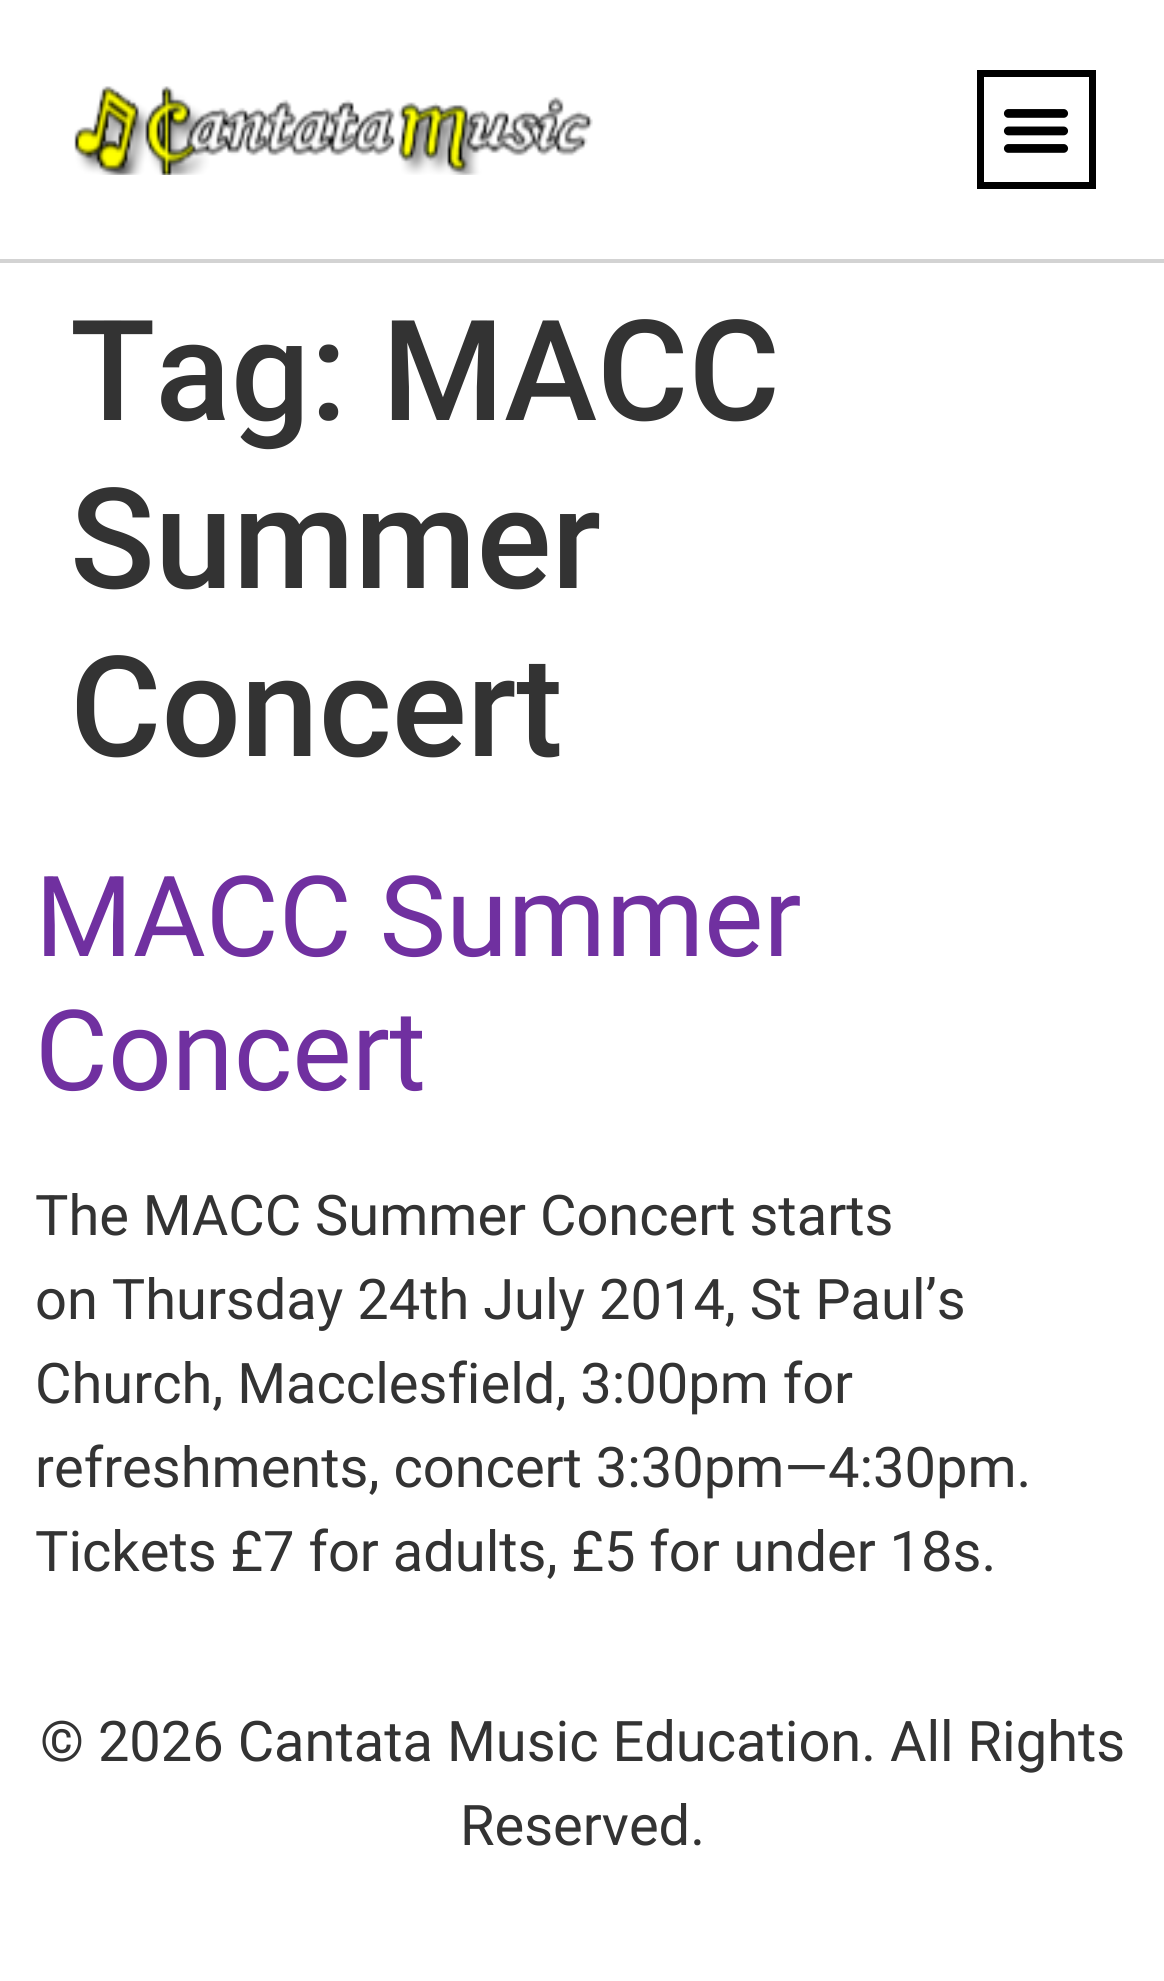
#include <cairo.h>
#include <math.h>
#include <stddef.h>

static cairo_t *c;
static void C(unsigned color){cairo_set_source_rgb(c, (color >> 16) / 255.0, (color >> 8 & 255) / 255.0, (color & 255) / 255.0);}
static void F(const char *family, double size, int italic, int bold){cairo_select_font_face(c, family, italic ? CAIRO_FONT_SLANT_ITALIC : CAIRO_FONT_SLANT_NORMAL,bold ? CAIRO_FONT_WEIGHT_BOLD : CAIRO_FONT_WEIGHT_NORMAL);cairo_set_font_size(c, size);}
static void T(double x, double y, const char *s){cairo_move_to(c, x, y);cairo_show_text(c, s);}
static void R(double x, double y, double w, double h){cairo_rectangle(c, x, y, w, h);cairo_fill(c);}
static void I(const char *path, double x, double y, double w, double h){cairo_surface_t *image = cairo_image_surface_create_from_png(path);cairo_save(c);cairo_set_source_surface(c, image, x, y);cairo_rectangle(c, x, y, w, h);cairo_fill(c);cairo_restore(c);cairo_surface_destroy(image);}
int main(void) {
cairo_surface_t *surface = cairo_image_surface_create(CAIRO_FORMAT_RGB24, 1164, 1981);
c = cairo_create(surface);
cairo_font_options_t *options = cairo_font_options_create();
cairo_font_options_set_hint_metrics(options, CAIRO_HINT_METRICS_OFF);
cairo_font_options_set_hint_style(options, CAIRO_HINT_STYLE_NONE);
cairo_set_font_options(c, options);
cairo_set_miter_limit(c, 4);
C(0xffffff);
cairo_paint(c);
C(0xd3d3d3);
R(0,259,1164,4);
I("1.png",74,86,519,89);
cairo_rectangle(c,980.5,73.5,112,112);
C(0x000000);
cairo_set_line_width(c,7);
cairo_stroke(c);
I("2.png",1003,109,66,44);
F("Roboto Medium",140,0,0);
C(0x333333);
T(70,420,"Tag: MACC");
T(70,588,"Summer");
T(70,756,"Concert");
F("Roboto",112,0,0);
C(0x7030a0);
T(35,956,"MACC Summer");
T(35,1090,"Concert");
F("Roboto",56,0,0);
C(0x333333);
T(35,1235,"The MACC Summer Concert starts");
T(35,1319,"on Thursday 24th July 2014, St Paul’s");
T(35,1403,"Church, Macclesfield, 3:00pm for");
T(35,1487,"refreshments, concert 3:30pm—4:30pm.");
T(35,1571,"Tickets £7 for adults, £5 for under 18s.");
T(40,1761,"© 2026 Cantata Music Education. All Rights");
T(460,1845,"Reserved.");
cairo_surface_write_to_png(surface, "o.png");
cairo_font_options_destroy(options);
cairo_destroy(c);
cairo_surface_destroy(surface);
return 0;
}
